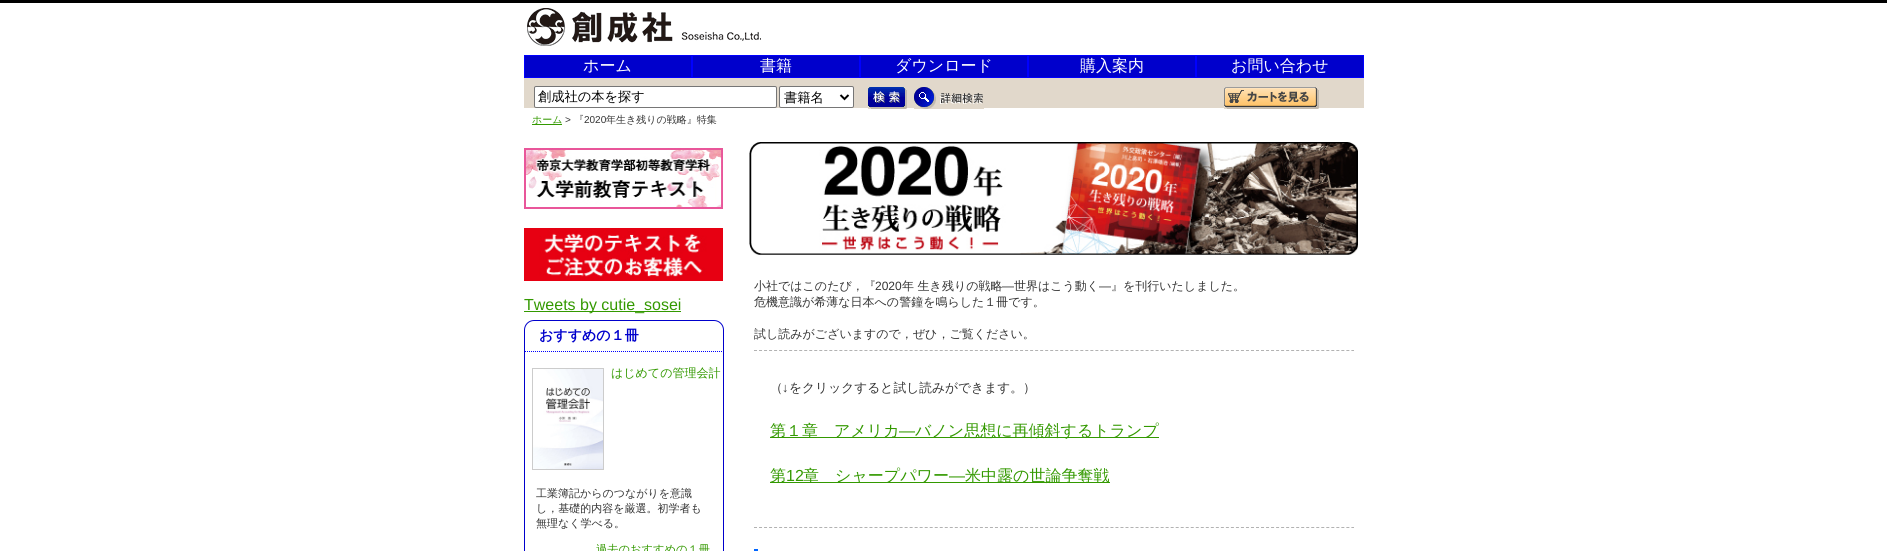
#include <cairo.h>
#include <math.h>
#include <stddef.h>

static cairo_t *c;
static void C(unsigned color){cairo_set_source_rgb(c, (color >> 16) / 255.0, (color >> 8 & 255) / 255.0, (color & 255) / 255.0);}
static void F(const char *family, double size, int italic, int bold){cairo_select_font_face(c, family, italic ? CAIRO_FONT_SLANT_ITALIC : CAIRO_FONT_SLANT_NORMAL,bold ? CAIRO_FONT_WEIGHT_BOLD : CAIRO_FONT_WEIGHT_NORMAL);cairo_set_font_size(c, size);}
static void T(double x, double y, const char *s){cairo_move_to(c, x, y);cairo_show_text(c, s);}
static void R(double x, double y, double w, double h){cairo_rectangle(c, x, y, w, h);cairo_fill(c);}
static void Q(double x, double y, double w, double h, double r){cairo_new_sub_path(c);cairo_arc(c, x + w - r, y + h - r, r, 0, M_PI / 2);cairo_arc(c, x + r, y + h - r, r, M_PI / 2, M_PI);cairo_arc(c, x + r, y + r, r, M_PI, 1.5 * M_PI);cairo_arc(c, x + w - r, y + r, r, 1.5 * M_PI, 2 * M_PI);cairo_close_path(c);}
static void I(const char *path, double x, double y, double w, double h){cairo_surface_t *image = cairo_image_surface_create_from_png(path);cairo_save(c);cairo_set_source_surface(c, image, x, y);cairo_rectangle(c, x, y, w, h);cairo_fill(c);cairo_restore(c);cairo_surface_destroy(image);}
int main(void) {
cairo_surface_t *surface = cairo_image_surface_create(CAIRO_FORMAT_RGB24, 1887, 551);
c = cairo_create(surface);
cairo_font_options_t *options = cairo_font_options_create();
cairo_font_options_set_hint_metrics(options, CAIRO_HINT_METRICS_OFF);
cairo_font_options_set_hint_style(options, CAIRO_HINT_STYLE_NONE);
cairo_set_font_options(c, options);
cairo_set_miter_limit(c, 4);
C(0xffffff);
cairo_paint(c);
C(0x000000);
R(0,0,1887,3);
I("1.png",527,8,234,38);
C(0x0000cc);
R(525,56,838,21);
cairo_rectangle(c,524.5,55.5,167,22);
C(0x0000ff);
cairo_set_line_width(c,1);
cairo_stroke(c);
F("WenQuanYi Zen Hei Medium",16,0,0);
C(0xffffff);
T(583,71,"ホーム");
cairo_rectangle(c,692.5,55.5,167,22);
C(0x0000ff);
cairo_stroke(c);
C(0xffffff);
T(760,71,"書籍");
cairo_rectangle(c,860.5,55.5,167,22);
C(0x0000ff);
cairo_stroke(c);
C(0xffffff);
T(895,71,"ダウンロード");
cairo_rectangle(c,1028.5,55.5,167,22);
C(0x0000ff);
cairo_stroke(c);
C(0xffffff);
T(1080,71,"購入案内");
cairo_rectangle(c,1196.5,55.5,167,22);
C(0x0000ff);
cairo_stroke(c);
C(0xffffff);
T(1231,71,"お問い合わせ");
C(0xe1d8cb);
R(524,78,840,30);
C(0xffffff);
Q(534.5,86.5,242,21,1.5);
cairo_fill_preserve(c);
C(0x767676);
cairo_stroke(c);
F("WenQuanYi Zen Hei Medium",13.25,0,0);
C(0x000000);
T(538,101,"創成社の本を探す");
C(0xffffff);
Q(779.5,86.5,74,21,1.5);
cairo_fill_preserve(c);
C(0x767676);
cairo_stroke(c);
cairo_new_path(c);
cairo_move_to(c,840.5,95);
cairo_line_to(c,844.5,99);
cairo_line_to(c,848.5,95);
C(0x000000);
cairo_set_line_width(c,2);
cairo_stroke(c);
cairo_save(c);
cairo_rectangle(c,784,89,53,17);
cairo_clip(c);
T(784,102,"書籍名");
cairo_restore(c);
I("2.png",868,87,39,22);
I("3.png",914,87,70,22);
I("4.png",1224,87,95,22);
F("WenQuanYi Zen Hei Medium",10,0,0);
C(0x339900);
T(532,123,"ホーム");
R(532,124,30,1);
F("Liberation Sans",10,0,0);
C(0x333333);
T(565,123,">");
F("WenQuanYi Zen Hei Medium",10,0,0);
T(574,123,"『");
F("Liberation Sans",10,0,0);
T(584,123,"2020");
F("WenQuanYi Zen Hei Medium",10,0,0);
T(606,123,"年生き残りの戦略』特集");
I("5.png",524,148,199,61);
I("6.png",524,228,199,53);
C(0x339900);
R(524,311,157,1);
F("Liberation Sans",16,0,0);
T(524,310,"Tweets by cutie_sosei");
Q(524.5,320.5,199,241,9.5);
C(0x0000cc);
cairo_set_line_width(c,1);
cairo_stroke(c);
cairo_new_path(c);
cairo_move_to(c,525,351.5);
cairo_line_to(c,723,351.5);
C(0x0000ff);
cairo_set_dash(c,(double[]){1,1},2,0);
cairo_stroke(c);
F("WenQuanYi Zen Hei",14,0,1);
C(0x0000cc);
T(539,340,"おすすめの１冊");
cairo_rectangle(c,532.5,368.5,71,101);
C(0xcccccc);
cairo_set_dash(c,NULL,0,0);
cairo_stroke(c);
I("7.png",533,369,70,100);
F("WenQuanYi Zen Hei Medium",12,0,0);
C(0x339900);
T(611,377,"はじめての管理会計");
F("WenQuanYi Zen Hei Medium",11,0,0);
C(0x333333);
T(536,497,"工業簿記からのつながりを意識");
T(536,512,"し，基礎的内容を厳選。初学者も");
T(536,527,"無理なく学べる。");
F("WenQuanYi Zen Hei Medium",11.25,0,0);
C(0x339900);
T(596,553,"過去のおすすめの１冊");
I("8.png",749,142,609,113);
F("WenQuanYi Zen Hei Medium",12,0,0);
C(0x333333);
T(754,290,"小社ではこのたび，『");
F("Liberation Sans",12,0,0);
T(875,290,"2020");
F("WenQuanYi Zen Hei Medium",12,0,0);
T(902,290,"年 生き残りの戦略");
F("Liberation Sans",12,0,0);
T(1002,290,"―");
F("WenQuanYi Zen Hei Medium",12,0,0);
T(1014,290,"世界はこう動く");
F("Liberation Sans",12,0,0);
T(1099,290,"―");
F("WenQuanYi Zen Hei Medium",12,0,0);
T(1111,290,"』を刊行いたしました。");
T(754,306,"危機意識が希薄な日本への警鐘を鳴らした１冊です。");
T(754,338,"試し読みがございますので，ぜひ，ご覧ください。");
cairo_new_path(c);
cairo_move_to(c,754,350.5);
cairo_line_to(c,1354,350.5);
C(0xb2b2b2);
cairo_set_dash(c,(double[]){3,2.02},2,0);
cairo_stroke(c);
cairo_new_path(c);
cairo_move_to(c,754,527.5);
cairo_line_to(c,1354,527.5);
cairo_stroke(c);
F("WenQuanYi Zen Hei Medium",12.75,0,0);
C(0x333333);
T(770,392,"（");
F("Liberation Sans",12.75,0,0);
T(782,392,"↓");
F("WenQuanYi Zen Hei Medium",12.75,0,0);
T(789,392,"をクリックすると試し読みができます。）");
C(0x339900);
R(770,437,389,1);
F("WenQuanYi Zen Hei Medium",16,0,0);
T(770,436,"第１章　アメリカ");
F("Liberation Sans",16,0,0);
T(899,436,"―");
F("WenQuanYi Zen Hei Medium",16,0,0);
T(915,436,"バノン思想に再傾斜するトランプ");
R(770,482,340,1);
T(770,481,"第");
F("Liberation Sans",16,0,0);
T(786,481,"12");
F("WenQuanYi Zen Hei Medium",16,0,0);
T(803,481,"章　シャープパワー");
F("Liberation Sans",16,0,0);
T(949,481,"―");
F("WenQuanYi Zen Hei Medium",16,0,0);
T(965,481,"米中露の世論争奪戦");
C(0x0066ff);
R(754,549,4,2);
cairo_surface_write_to_png(surface, "o.png");
cairo_font_options_destroy(options);
cairo_destroy(c);
cairo_surface_destroy(surface);
return 0;
}
